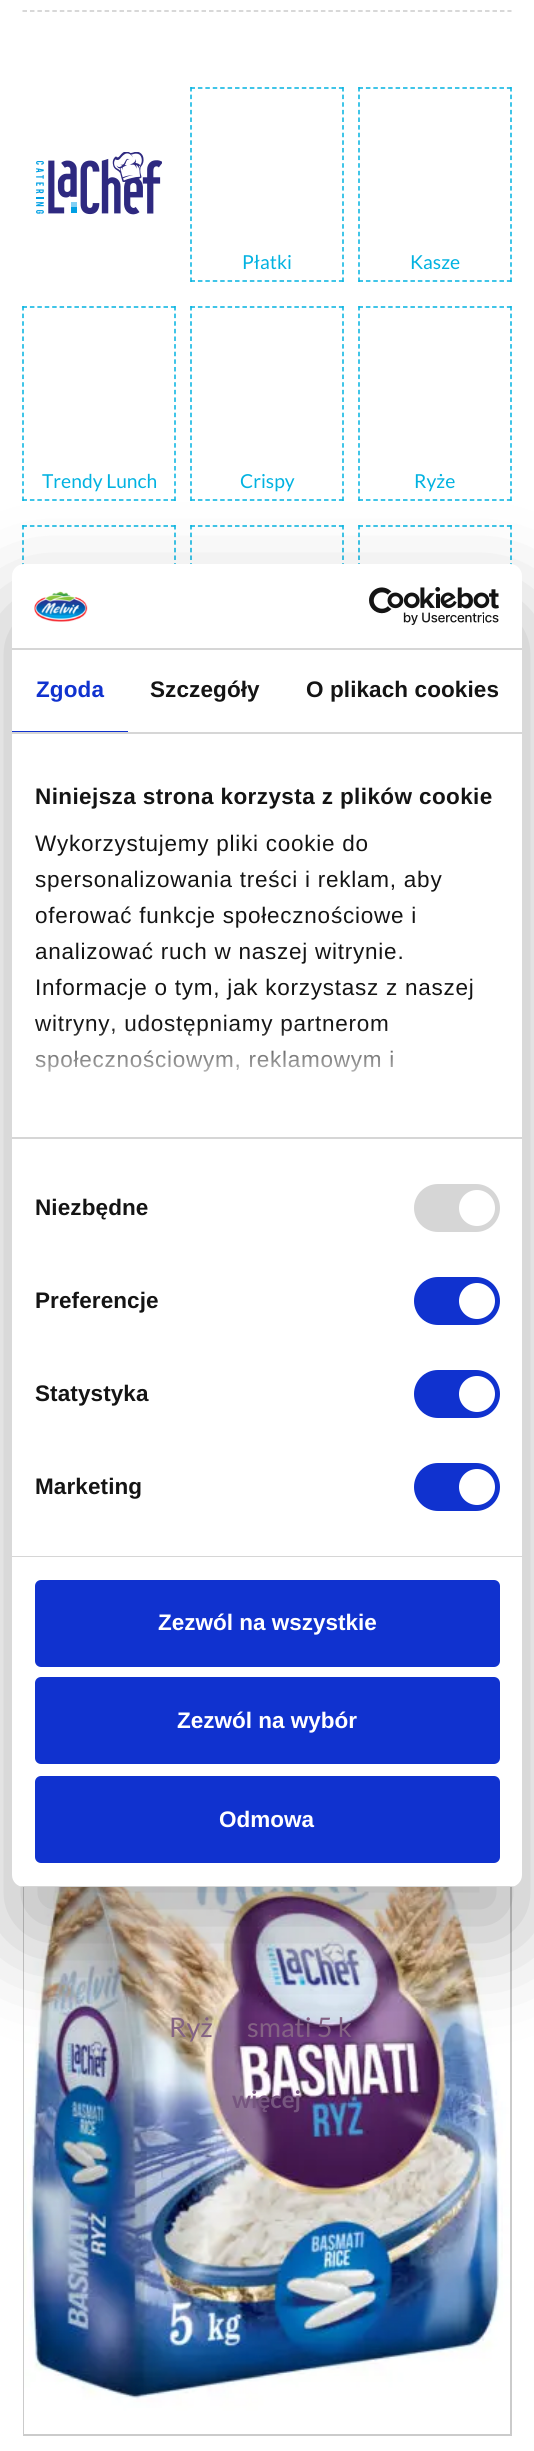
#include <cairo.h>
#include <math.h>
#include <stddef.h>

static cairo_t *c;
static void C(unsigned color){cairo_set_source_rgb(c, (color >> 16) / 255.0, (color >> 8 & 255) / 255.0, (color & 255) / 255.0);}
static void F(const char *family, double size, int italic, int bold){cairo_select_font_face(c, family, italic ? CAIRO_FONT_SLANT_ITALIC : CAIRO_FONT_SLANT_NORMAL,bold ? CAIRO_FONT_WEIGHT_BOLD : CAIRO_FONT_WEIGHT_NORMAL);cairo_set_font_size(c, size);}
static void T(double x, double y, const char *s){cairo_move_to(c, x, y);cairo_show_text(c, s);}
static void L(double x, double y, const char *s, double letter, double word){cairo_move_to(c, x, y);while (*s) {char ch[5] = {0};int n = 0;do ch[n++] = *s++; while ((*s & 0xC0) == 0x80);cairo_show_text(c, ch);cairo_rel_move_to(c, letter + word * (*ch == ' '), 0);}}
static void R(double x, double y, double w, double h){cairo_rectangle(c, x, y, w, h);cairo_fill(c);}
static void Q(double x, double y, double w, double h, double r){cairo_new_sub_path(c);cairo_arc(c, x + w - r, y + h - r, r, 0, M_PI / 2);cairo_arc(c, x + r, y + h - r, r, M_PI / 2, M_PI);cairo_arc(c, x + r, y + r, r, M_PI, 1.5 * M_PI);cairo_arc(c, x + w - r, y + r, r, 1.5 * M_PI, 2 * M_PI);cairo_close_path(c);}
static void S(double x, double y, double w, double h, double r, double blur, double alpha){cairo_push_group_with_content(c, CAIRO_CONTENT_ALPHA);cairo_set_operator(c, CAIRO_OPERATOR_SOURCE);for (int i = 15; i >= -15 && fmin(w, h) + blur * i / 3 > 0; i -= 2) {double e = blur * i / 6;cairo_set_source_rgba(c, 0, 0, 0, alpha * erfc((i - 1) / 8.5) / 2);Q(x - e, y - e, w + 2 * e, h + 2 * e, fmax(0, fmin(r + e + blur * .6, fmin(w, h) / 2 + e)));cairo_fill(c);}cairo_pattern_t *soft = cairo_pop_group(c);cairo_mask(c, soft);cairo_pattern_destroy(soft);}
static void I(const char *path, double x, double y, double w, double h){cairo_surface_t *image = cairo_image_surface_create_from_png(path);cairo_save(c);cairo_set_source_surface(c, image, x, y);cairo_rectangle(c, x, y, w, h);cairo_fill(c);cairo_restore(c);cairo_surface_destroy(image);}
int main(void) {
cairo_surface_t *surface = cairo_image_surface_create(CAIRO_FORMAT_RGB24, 534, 2451);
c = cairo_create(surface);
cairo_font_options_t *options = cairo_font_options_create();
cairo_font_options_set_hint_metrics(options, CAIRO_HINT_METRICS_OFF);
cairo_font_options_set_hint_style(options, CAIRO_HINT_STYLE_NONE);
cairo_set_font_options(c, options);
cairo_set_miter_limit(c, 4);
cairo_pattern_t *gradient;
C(0xffffff);
cairo_paint(c);
cairo_new_path(c);
cairo_move_to(c,22.5,11);
cairo_line_to(c,511.5,11);
C(0xcbcbcb);
cairo_set_line_width(c,1.5);
cairo_set_dash(c,(double[]){4.5,2.96},2,0);
cairo_stroke(c);
I("1.png",36,152,126,63);
cairo_new_path(c);
cairo_move_to(c,190.5,88);
cairo_line_to(c,343.5,88);
C(0x01b2e1);
cairo_set_dash(c,(double[]){4.5,2.92},2,0);
cairo_stroke(c);
cairo_new_path(c);
cairo_move_to(c,343,87);
cairo_line_to(c,343,282);
cairo_set_dash(c,(double[]){4.5,3.12},2,0);
cairo_stroke(c);
cairo_new_path(c);
cairo_move_to(c,190.5,281);
cairo_line_to(c,343.5,281);
cairo_set_dash(c,(double[]){4.5,2.92},2,0);
cairo_stroke(c);
cairo_new_path(c);
cairo_move_to(c,191,87);
cairo_line_to(c,191,282);
cairo_set_dash(c,(double[]){4.5,3.12},2,0);
cairo_stroke(c);
F("Lato",19.25,0,0);
T(242,269,"Płatki");
cairo_new_path(c);
cairo_move_to(c,358.5,88);
cairo_line_to(c,511.5,88);
cairo_set_dash(c,(double[]){4.5,2.92},2,0);
cairo_stroke(c);
cairo_new_path(c);
cairo_move_to(c,511,87);
cairo_line_to(c,511,282);
cairo_set_dash(c,(double[]){4.5,3.12},2,0);
cairo_stroke(c);
cairo_new_path(c);
cairo_move_to(c,358.5,281);
cairo_line_to(c,511.5,281);
cairo_set_dash(c,(double[]){4.5,2.92},2,0);
cairo_stroke(c);
cairo_new_path(c);
cairo_move_to(c,359,87);
cairo_line_to(c,359,282);
cairo_set_dash(c,(double[]){4.5,3.12},2,0);
cairo_stroke(c);
T(410,269,"Kasze");
cairo_new_path(c);
cairo_move_to(c,22.5,307);
cairo_line_to(c,175.5,307);
cairo_set_dash(c,(double[]){4.5,2.92},2,0);
cairo_stroke(c);
cairo_new_path(c);
cairo_move_to(c,175,306);
cairo_line_to(c,175,501);
cairo_set_dash(c,(double[]){4.5,3.12},2,0);
cairo_stroke(c);
cairo_new_path(c);
cairo_move_to(c,22.5,500);
cairo_line_to(c,175.5,500);
cairo_set_dash(c,(double[]){4.5,2.92},2,0);
cairo_stroke(c);
cairo_new_path(c);
cairo_move_to(c,23,306);
cairo_line_to(c,23,501);
cairo_set_dash(c,(double[]){4.5,3.12},2,0);
cairo_stroke(c);
T(42,488,"Trendy Lunch");
cairo_new_path(c);
cairo_move_to(c,190.5,307);
cairo_line_to(c,343.5,307);
cairo_set_dash(c,(double[]){4.5,2.92},2,0);
cairo_stroke(c);
cairo_new_path(c);
cairo_move_to(c,343,306);
cairo_line_to(c,343,501);
cairo_set_dash(c,(double[]){4.5,3.12},2,0);
cairo_stroke(c);
cairo_new_path(c);
cairo_move_to(c,190.5,500);
cairo_line_to(c,343.5,500);
cairo_set_dash(c,(double[]){4.5,2.92},2,0);
cairo_stroke(c);
cairo_new_path(c);
cairo_move_to(c,191,306);
cairo_line_to(c,191,501);
cairo_set_dash(c,(double[]){4.5,3.12},2,0);
cairo_stroke(c);
T(240,488,"Crispy");
cairo_new_path(c);
cairo_move_to(c,358.5,307);
cairo_line_to(c,511.5,307);
cairo_set_dash(c,(double[]){4.5,2.92},2,0);
cairo_stroke(c);
cairo_new_path(c);
cairo_move_to(c,511,306);
cairo_line_to(c,511,501);
cairo_set_dash(c,(double[]){4.5,3.12},2,0);
cairo_stroke(c);
cairo_new_path(c);
cairo_move_to(c,358.5,500);
cairo_line_to(c,511.5,500);
cairo_set_dash(c,(double[]){4.5,2.92},2,0);
cairo_stroke(c);
cairo_new_path(c);
cairo_move_to(c,359,306);
cairo_line_to(c,359,501);
cairo_set_dash(c,(double[]){4.5,3.12},2,0);
cairo_stroke(c);
T(414,488,"Ryże");
cairo_new_path(c);
cairo_move_to(c,22.5,526);
cairo_line_to(c,175.5,526);
cairo_set_dash(c,(double[]){4.5,2.92},2,0);
cairo_stroke(c);
cairo_new_path(c);
cairo_move_to(c,175,525);
cairo_line_to(c,175,720);
cairo_set_dash(c,(double[]){4.5,3.12},2,0);
cairo_stroke(c);
cairo_new_path(c);
cairo_move_to(c,23,525);
cairo_line_to(c,23,720);
cairo_stroke(c);
cairo_new_path(c);
cairo_move_to(c,190.5,526);
cairo_line_to(c,343.5,526);
cairo_set_dash(c,(double[]){4.5,2.92},2,0);
cairo_stroke(c);
cairo_new_path(c);
cairo_move_to(c,343,525);
cairo_line_to(c,343,720);
cairo_set_dash(c,(double[]){4.5,3.12},2,0);
cairo_stroke(c);
cairo_new_path(c);
cairo_move_to(c,191,525);
cairo_line_to(c,191,720);
cairo_stroke(c);
cairo_new_path(c);
cairo_move_to(c,358.5,526);
cairo_line_to(c,511.5,526);
cairo_set_dash(c,(double[]){4.5,2.92},2,0);
cairo_stroke(c);
cairo_new_path(c);
cairo_move_to(c,511,525);
cairo_line_to(c,511,720);
cairo_set_dash(c,(double[]){4.5,3.12},2,0);
cairo_stroke(c);
cairo_new_path(c);
cairo_move_to(c,359,525);
cairo_line_to(c,359,720);
cairo_stroke(c);
cairo_rectangle(c,24,1705,487,730);
C(0xcbcbcb);
cairo_set_line_width(c,2);
cairo_set_dash(c,NULL,0,0);
cairo_stroke(c);
I("2.png",24,1887,486,547);
F("Lato",27,0,0);
C(0x856385);
T(169,2037,"Ryż");
T(247,2037,"smati 5 k");
F("Lato",24,0,1);
C(0x76567f);
T(232,2108,"więcej");
C(0x000000);
S(12,612,510,1323,12,51,.3);
C(0xffffff);
Q(12,564,510,1323,12);
cairo_fill(c);
C(0xd6d6d6);
R(12,648,510,2);
I("3.png",34,591,54,31);
I("4.png",369,587,130,38);
R(12,732,510,2);
C(0x1032cf);
R(12,731,116,1);
F("Liberation Sans",22.5,0,1);
L(36,697,"Zgoda",.1,0);
C(0x141414);
L(150,697,"Szczegóły",.1,0);
L(306,697,"O plikach cookies",.1,0);
C(0xd6d6d6);
R(12,1137,510,2);
C(0x141414);
L(35,804,"Niniejsza strona korzysta z plików cookie",.4,0);
F("Liberation Sans",22.5,0,0);
L(35,851,"Wykorzystujemy pliki cookie do",.75,0);
L(35,887,"spersonalizowania treści i reklam, aby",.75,0);
L(35,923,"oferować funkcje społecznościowe i",.75,0);
L(35,959,"analizować ruch w naszej witrynie.",.75,0);
L(35,995,"Informacje o tym, jak korzystasz z naszej",.75,0);
L(35,1031,"witryny, udostępniamy partnerom",.75,0);
L(35,1067,"społecznościowym, reklamowym i",.75,0);
gradient = cairo_pattern_create_linear(257,1137,257,1025);
cairo_pattern_add_color_stop_rgba(gradient,0,1,1,1,1);
cairo_pattern_add_color_stop_rgba(gradient,.5,1,1,1,.8);
cairo_pattern_add_color_stop_rgba(gradient,1,1,1,1,0);
cairo_set_source(c,gradient);
cairo_pattern_destroy(gradient);
R(35,1027,358,45);
C(0xd6d6d6);
R(12,1556,510,1);
F("Liberation Sans",22.5,0,1);
C(0x141414);
L(35,1215,"Niezbędne",.1,0);
C(0xd6d6d6);
Q(414,1184,86,48,24);
cairo_fill(c);
C(0xffffff);
cairo_arc(c,477,1208,18,0,2 * M_PI);
cairo_fill(c);
C(0x141414);
L(35,1308,"Preferencje",.1,0);
C(0x1032cf);
Q(414,1277,86,48,24);
cairo_fill(c);
C(0xffffff);
cairo_arc(c,477,1301,18,0,2 * M_PI);
cairo_fill(c);
C(0x141414);
L(35,1401,"Statystyka",.1,0);
C(0x1032cf);
Q(414,1370,86,48,24);
cairo_fill(c);
C(0xffffff);
cairo_arc(c,477,1394,18,0,2 * M_PI);
cairo_fill(c);
C(0x141414);
L(35,1494,"Marketing",.1,0);
C(0x1032cf);
Q(414,1463,86,48,24);
cairo_fill(c);
C(0xffffff);
cairo_arc(c,477,1487,18,0,2 * M_PI);
cairo_fill(c);
cairo_save(c);
Q(12,564,510,1323,12);
cairo_clip(c);
C(0xd6d6d6);
R(12,1886,510,1);
cairo_restore(c);
C(0x1032cf);
Q(36.5,1581.5,462,84,4.5);
cairo_fill_preserve(c);
cairo_set_line_width(c,3);
cairo_stroke(c);
C(0xffffff);
T(158,1630,"Zezwól na wszystkie");
C(0x1032cf);
Q(36.5,1678.5,462,84,4.5);
cairo_fill_preserve(c);
cairo_stroke(c);
C(0xffffff);
T(177,1728,"Zezwól na wybór");
C(0x1032cf);
Q(36.5,1777.5,462,84,4.5);
cairo_fill_preserve(c);
cairo_stroke(c);
C(0xffffff);
T(219,1827,"Odmowa");
cairo_surface_write_to_png(surface, "o.png");
cairo_font_options_destroy(options);
cairo_destroy(c);
cairo_surface_destroy(surface);
return 0;
}
